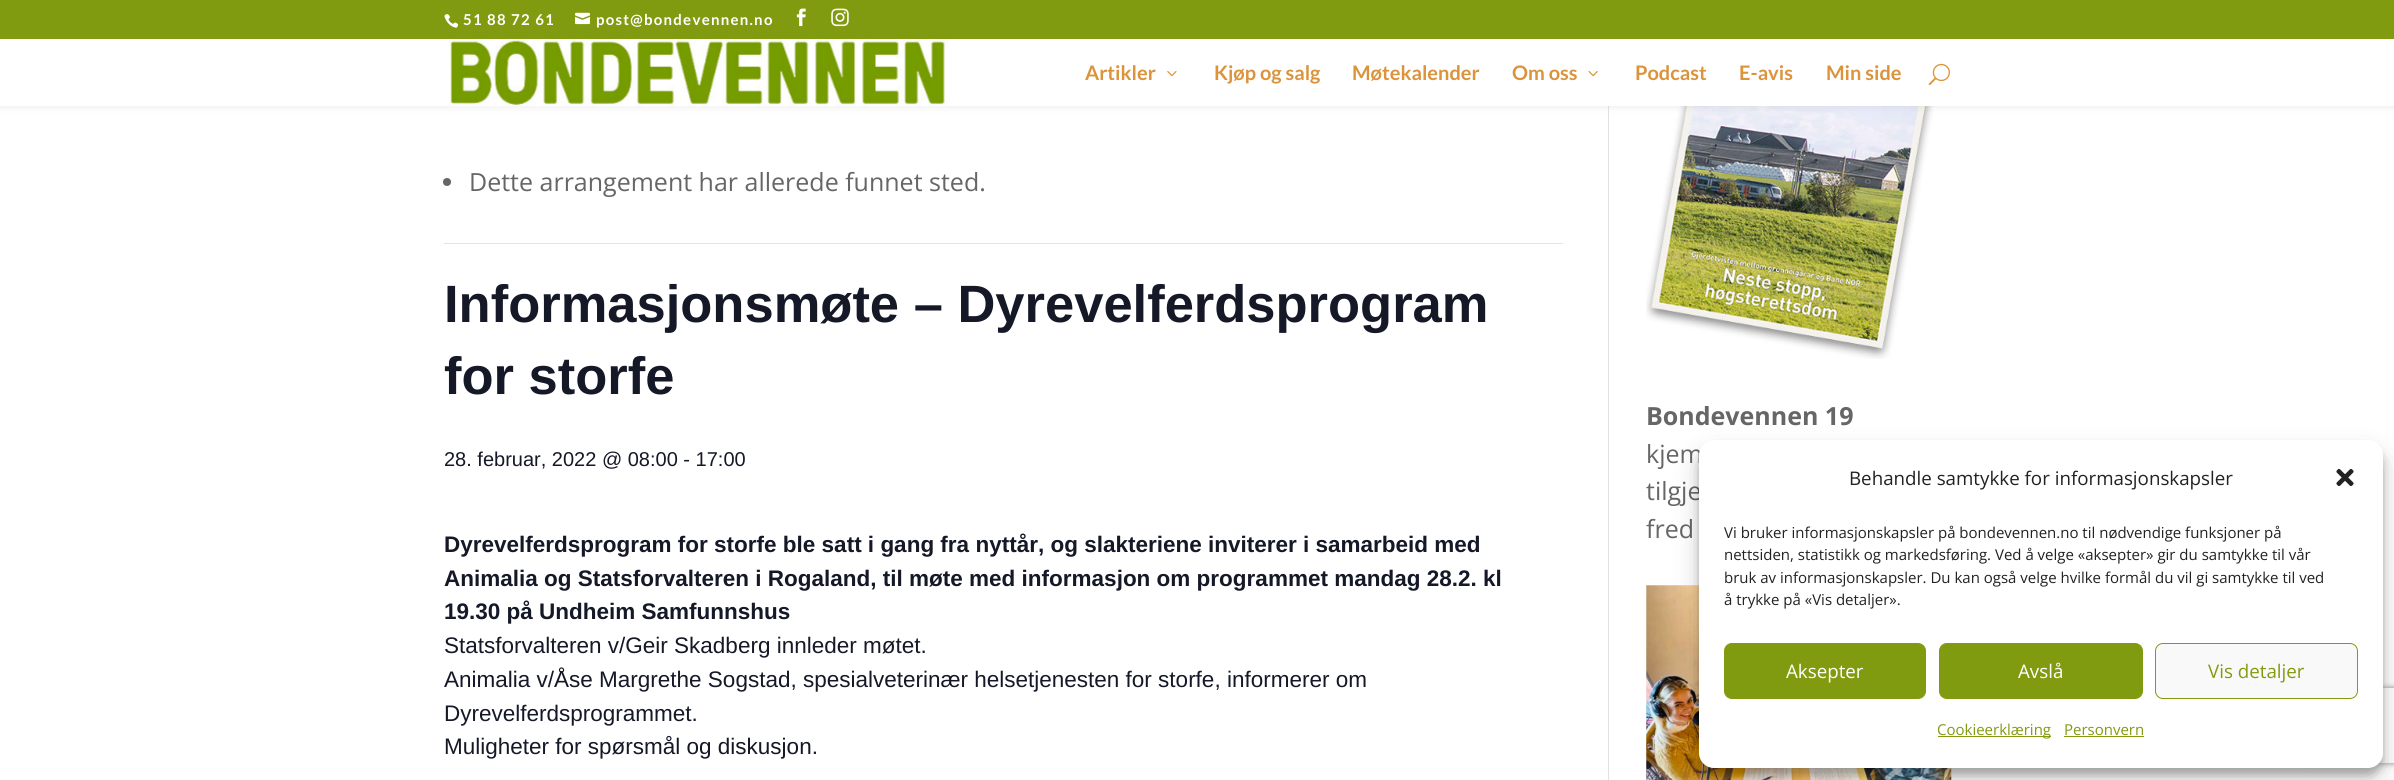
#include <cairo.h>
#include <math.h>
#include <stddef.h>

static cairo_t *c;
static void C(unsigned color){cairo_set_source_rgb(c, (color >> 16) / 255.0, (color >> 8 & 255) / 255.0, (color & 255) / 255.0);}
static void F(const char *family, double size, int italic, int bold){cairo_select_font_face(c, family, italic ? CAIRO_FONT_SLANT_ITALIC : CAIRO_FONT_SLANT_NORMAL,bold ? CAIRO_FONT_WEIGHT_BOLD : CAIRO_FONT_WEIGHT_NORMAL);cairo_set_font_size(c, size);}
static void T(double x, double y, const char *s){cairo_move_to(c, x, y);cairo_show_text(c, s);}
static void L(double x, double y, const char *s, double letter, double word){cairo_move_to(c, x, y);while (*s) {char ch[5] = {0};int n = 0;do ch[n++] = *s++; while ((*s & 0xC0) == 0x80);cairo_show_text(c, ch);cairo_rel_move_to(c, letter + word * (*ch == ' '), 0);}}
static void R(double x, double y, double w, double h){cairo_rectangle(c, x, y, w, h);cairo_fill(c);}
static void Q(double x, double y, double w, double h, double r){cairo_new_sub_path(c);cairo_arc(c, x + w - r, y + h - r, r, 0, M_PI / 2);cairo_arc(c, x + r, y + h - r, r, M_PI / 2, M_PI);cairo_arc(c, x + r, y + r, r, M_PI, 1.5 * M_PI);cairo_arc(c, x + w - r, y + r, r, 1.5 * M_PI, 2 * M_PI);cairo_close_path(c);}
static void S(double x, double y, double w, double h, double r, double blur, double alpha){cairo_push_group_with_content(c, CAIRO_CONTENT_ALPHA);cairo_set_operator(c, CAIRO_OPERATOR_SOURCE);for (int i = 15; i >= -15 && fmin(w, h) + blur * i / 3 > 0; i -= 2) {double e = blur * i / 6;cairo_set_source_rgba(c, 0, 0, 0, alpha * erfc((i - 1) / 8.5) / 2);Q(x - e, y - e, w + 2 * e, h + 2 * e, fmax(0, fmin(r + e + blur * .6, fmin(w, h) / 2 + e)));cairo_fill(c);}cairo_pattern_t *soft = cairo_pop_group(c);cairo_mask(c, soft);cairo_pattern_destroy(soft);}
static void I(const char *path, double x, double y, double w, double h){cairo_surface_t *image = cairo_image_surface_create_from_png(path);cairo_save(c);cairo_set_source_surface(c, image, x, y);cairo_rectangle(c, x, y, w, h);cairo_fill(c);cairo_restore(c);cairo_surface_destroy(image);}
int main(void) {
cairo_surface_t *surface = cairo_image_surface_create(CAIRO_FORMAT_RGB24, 2394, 780);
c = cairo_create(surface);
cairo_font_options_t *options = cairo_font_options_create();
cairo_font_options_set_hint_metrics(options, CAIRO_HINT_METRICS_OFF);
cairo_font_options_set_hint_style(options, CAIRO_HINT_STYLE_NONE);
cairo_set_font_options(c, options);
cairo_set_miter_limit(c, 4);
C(0xffffff);
cairo_paint(c);
C(0xe2e2e2);
R(1608,106,1,674);
I("9.png",1646,106,300,253);
C(0x000000);
S(0,39,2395,67,0,4.5,.1);
C(0x819b10);
R(0,0,2394,39);
I("1.png",444,14,15,14);
F("Lato",15,0,1);
C(0xffffff);
L(463,25,"51 88 72 61",1.25,0);
I("2.png",575,12,15,13);
L(596,25,"post@bondevennen.no",1.25,0);
I("3.png",796,8,10,19);
I("4.png",831,8,18,19);
R(0,39,2394,67);
I("5.png",448,39,500,68);
F("Lato",20,0,1);
C(0xdb933c);
T(1085,80,"Artikler");
I("6.png",1167,71,10,6);
T(1214,80,"Kjøp og salg");
T(1352,80,"Møtekalender");
T(1512,80,"Om oss");
I("7.png",1588,71,10,6);
T(1635,80,"Podcast");
T(1739,80,"E-avis");
T(1826,80,"Min side");
I("8.png",1928,63,22,23);
C(0xe4e4e4);
R(444,243,1119,1);
C(0x666666);
cairo_arc(c,447,182,4,0,2 * M_PI);
cairo_fill(c);
F("Open Sans",25,0,0);
T(469,191,"Dette arrangement har allerede funnet sted.");
F("Liberation Sans",52.5,0,1);
C(0x141827);
T(444,322,"Informasjonsmøte – Dyrevelferdsprogram");
T(444,394,"for storfe");
F("Liberation Sans",20,0,0);
T(444,466,"28. februar, 2022 @ 08:00 - 17:00");
F("Liberation Sans",22.5,0,1);
T(444,552,"Dyrevelferdsprogram for storfe ble satt i gang fra nyttår, og slakteriene inviterer i samarbeid med");
T(444,586,"Animalia og Statsforvalteren i Rogaland, til møte med informasjon om programmet mandag 28.2. kl");
T(444,619,"19.30 på Undheim Samfunnshus");
F("Liberation Sans",22.5,0,0);
T(444,653,"Statsforvalteren v/Geir Skadberg innleder møtet.");
T(444,687,"Animalia v/Åse Margrethe Sogstad, spesialveterinær helsetjenesten for storfe, informerer om");
T(444,721,"Dyrevelferdsprogrammet.");
T(444,754,"Muligheter for spørsmål og diskusjon.");
F("Open Sans",25,0,1);
C(0x666666);
T(1646,425,"Bondevennen 19");
F("Open Sans",25,0,0);
T(1646,463,"kjem");
T(1646,500,"tilgje");
T(1646,538,"fred");
I("10.png",1646,585,306,195);
C(0x000000);
S(1699,448,684,327,15,4,.23);
S(1699,453,684,327,15,12.5,.19);
cairo_save(c);
cairo_set_fill_rule(c,CAIRO_FILL_RULE_EVEN_ODD);
cairo_new_path(c);
cairo_move_to(c,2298,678);
cairo_line_to(c,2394,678);
cairo_line_to(c,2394,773);
cairo_line_to(c,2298,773);
cairo_close_path(c);
cairo_move_to(c,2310.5,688);
cairo_line_to(c,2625.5,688);
cairo_curve_to(c,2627,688,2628,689,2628,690.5);
cairo_line_to(c,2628,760.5);
cairo_curve_to(c,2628,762,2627,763,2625.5,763);
cairo_line_to(c,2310.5,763);
cairo_curve_to(c,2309,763,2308,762,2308,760.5);
cairo_line_to(c,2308,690.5);
cairo_curve_to(c,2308,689,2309,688,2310.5,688);
cairo_close_path(c);
cairo_clip(c);
C(0x808080);
S(2308,688,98,75,2.5,3,1);
cairo_restore(c);
C(0xffffff);
Q(1699,440,684,328,15);
cairo_fill(c);
F("Open Sans",18.75,0,0);
C(0x222222);
T(1849,485,"Behandle samtykke for informasjonskapsler");
I("11.png",2336,468,18,18);
F("Open Sans",15,0,0);
T(1724,538,"Vi bruker informasjonskapsler på bondevennen.no til nødvendige funksjoner på");
T(1724,560,"nettsiden, statistikk og markedsføring. Ved å velge «aksepter» gir du samtykke til vår");
T(1724,583,"bruk av informasjonskapsler. Du kan også velge hvilke formål du vil gi samtykke til ved");
T(1724,605,"å trykke på «Vis detaljer».");
C(0x819b10);
Q(1724.5,643.5,201,55,7.5);
cairo_fill_preserve(c);
cairo_set_line_width(c,1);
cairo_stroke(c);
F("Open Sans",18.75,0,0);
C(0xffffff);
T(1786,678,"Aksepter");
C(0x819b10);
Q(1939.5,643.5,203,55,7.5);
cairo_fill_preserve(c);
cairo_stroke(c);
C(0xffffff);
T(2018,678,"Avslå");
C(0xf9f9f9);
Q(2155.5,643.5,202,55,7.5);
cairo_fill_preserve(c);
C(0x819b10);
cairo_stroke(c);
T(2208,678,"Vis detaljer");
R(1938,736,113,1);
F("Open Sans",15,0,0);
T(1937,735,"Cookieerklæring");
T(2064,735,"Personvern");
R(2064,736,80,1);
cairo_surface_write_to_png(surface, "o.png");
cairo_font_options_destroy(options);
cairo_destroy(c);
cairo_surface_destroy(surface);
return 0;
}
